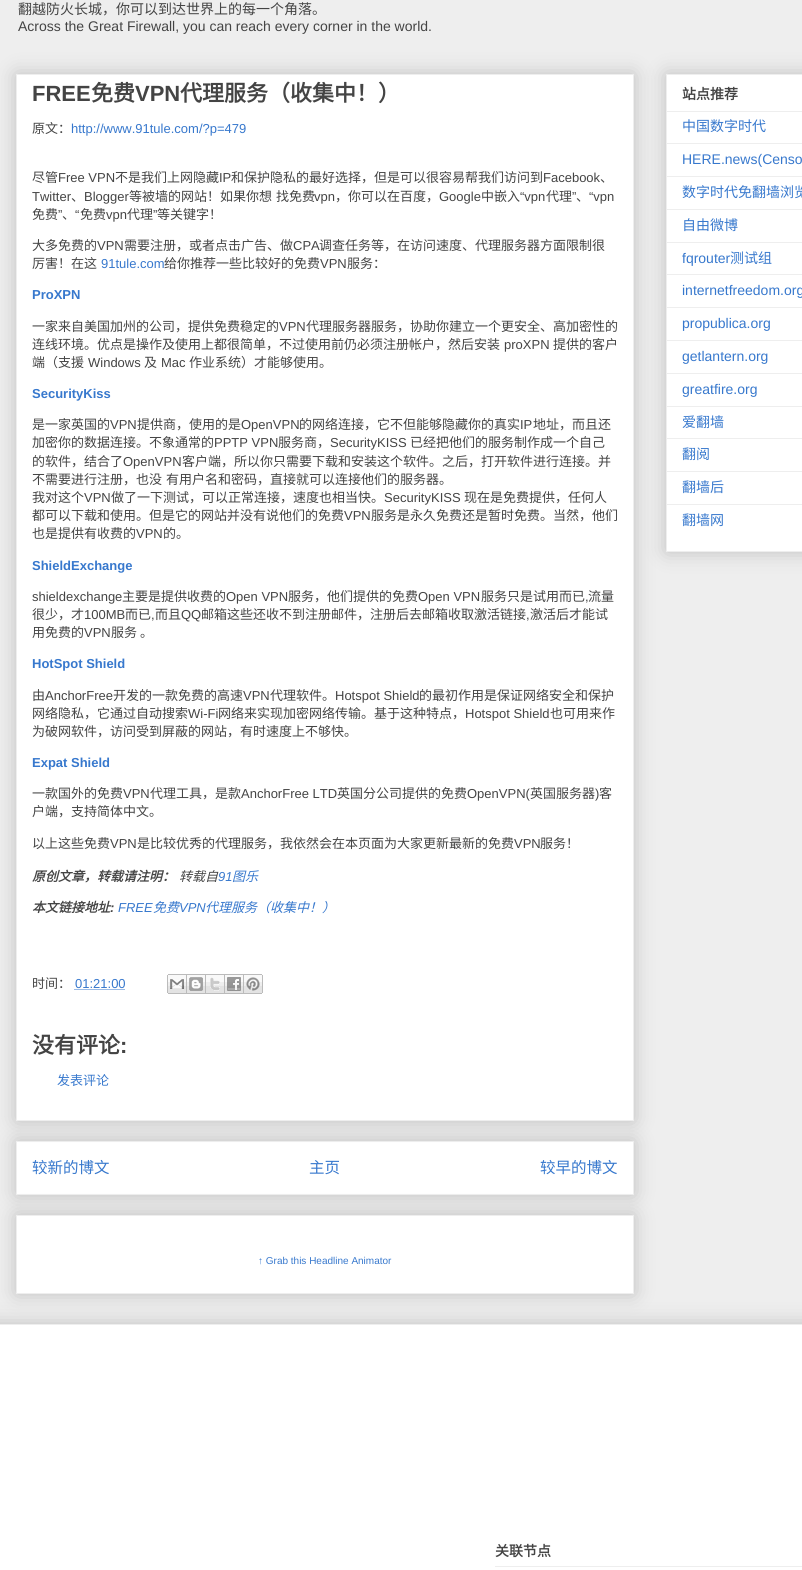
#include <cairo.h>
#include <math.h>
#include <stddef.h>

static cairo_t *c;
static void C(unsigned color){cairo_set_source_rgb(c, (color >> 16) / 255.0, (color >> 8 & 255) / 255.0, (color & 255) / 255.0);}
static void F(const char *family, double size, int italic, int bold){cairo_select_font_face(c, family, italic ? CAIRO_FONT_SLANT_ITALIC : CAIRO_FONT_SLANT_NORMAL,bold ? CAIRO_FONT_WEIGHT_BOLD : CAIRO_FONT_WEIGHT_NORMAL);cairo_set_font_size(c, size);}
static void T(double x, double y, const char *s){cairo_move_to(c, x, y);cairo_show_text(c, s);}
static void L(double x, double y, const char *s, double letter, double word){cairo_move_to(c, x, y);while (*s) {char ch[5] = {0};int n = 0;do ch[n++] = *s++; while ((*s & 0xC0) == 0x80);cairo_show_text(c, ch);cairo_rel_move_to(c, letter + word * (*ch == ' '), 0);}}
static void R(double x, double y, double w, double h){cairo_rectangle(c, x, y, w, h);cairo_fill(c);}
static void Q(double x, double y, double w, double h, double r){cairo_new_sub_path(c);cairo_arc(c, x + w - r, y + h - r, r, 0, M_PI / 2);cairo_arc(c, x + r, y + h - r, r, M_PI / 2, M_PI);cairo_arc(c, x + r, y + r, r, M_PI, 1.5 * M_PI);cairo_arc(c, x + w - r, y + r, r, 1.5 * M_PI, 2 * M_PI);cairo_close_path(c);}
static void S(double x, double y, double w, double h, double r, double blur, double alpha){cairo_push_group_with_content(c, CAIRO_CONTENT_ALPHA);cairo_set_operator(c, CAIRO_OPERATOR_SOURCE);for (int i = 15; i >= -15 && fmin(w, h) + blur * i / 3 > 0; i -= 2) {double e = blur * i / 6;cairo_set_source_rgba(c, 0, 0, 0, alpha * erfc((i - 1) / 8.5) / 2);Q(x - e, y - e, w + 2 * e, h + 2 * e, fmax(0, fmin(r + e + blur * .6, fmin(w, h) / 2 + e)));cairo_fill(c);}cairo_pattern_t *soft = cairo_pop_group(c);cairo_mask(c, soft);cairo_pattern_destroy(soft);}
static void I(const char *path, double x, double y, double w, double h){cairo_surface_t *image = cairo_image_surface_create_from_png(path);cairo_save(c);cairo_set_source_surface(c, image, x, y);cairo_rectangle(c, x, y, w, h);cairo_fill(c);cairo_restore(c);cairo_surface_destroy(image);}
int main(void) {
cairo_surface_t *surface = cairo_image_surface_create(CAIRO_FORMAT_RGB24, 802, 1570);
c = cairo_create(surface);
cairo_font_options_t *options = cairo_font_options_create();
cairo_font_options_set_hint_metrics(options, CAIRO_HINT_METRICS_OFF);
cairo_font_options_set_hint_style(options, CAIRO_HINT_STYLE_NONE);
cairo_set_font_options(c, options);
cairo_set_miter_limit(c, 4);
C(0xeeeeee);
cairo_paint(c);
F("Noto Sans CJK SC",14,0,0);
C(0x444444);
T(18,14,"翻越防火长城，你可以到达世界上的每一个角落。");
F("Liberation Sans",14,0,0);
T(18,31,"Across the Great Firewall, you can reach every corner in the world.");
C(0x000000);
S(16,1141,618,54,0,10,.2);
C(0xffffff);
cairo_rectangle(c,16.5,1141.5,617,53);
cairo_fill_preserve(c);
C(0xeeeeee);
cairo_set_line_width(c,1);
cairo_stroke(c);
C(0x000000);
S(16,74,618,1047,0,10,.2);
C(0xffffff);
cairo_rectangle(c,16.5,74.5,617,1046);
cairo_fill_preserve(c);
C(0xeeeeee);
cairo_stroke(c);
F("Liberation Sans",22,0,1);
C(0x444444);
T(32,101,"FREE");
F("Noto Sans CJK SC",22,0,1);
T(91,101,"免费");
F("Liberation Sans",22,0,1);
T(135,101,"VPN");
F("Noto Sans CJK SC",22,0,1);
T(180,101,"代理服务（收集中！）");
F("Noto Sans CJK SC",13,0,0);
T(32,133,"原文：");
F("Liberation Sans",13,0,0);
C(0x3778cd);
T(71,133,"http://www.91tule.com/?p=479");
F("Noto Sans CJK SC",13,0,0);
C(0x444444);
T(32,182,"尽管");
F("Liberation Sans",13,0,0);
T(58,182,"Free VPN");
F("Noto Sans CJK SC",13,0,0);
T(115,182,"不是我们上网隐藏");
F("Liberation Sans",13,0,0);
T(219,182,"IP");
F("Noto Sans CJK SC",13,0,0);
T(231,182,"和保护隐私的最好选择，但是可以很容易帮我们访问到");
F("Liberation Sans",13,0,0);
T(543,182,"Facebook");
F("Noto Sans CJK SC",13,0,0);
T(600,182,"、");
F("Liberation Sans",13,0,0);
T(32,201,"Twitter");
F("Noto Sans CJK SC",13,0,0);
T(71,201,"、");
F("Liberation Sans",13,0,0);
T(84,201,"Blogger");
F("Noto Sans CJK SC",13,0,0);
L(129,201,"等被墙的网站！如果你想 找免费",0,1);
F("Liberation Sans",13,0,0);
T(314,201,"vpn");
F("Noto Sans CJK SC",13,0,0);
T(335,201,"，你可以在百度，");
F("Liberation Sans",13,0,0);
T(439,201,"Google");
F("Noto Sans CJK SC",13,0,0);
T(481,201,"中嵌入");
F("Liberation Sans",13,0,0);
T(520,201,"“vpn");
F("Noto Sans CJK SC",13,0,0);
T(546,201,"代理");
F("Liberation Sans",13,0,0);
T(572,201,"”");
F("Noto Sans CJK SC",13,0,0);
T(576,201,"、");
F("Liberation Sans",13,0,0);
T(589,201,"“vpn");
F("Noto Sans CJK SC",13,0,0);
T(32,219,"免费");
F("Liberation Sans",13,0,0);
T(58,219,"”");
T(75,219,"“");
F("Noto Sans CJK SC",13,0,0);
T(80,219,"免费");
T(127,219,"代理");
F("Liberation Sans",13,0,0);
T(153,219,"”");
F("Noto Sans CJK SC",13,0,0);
T(157,219,"等关键字！");
T(62,219,"、");
F("Liberation Sans",13,0,0);
T(106,219,"vpn");
F("Noto Sans CJK SC",13,0,0);
T(32,250,"大多免费的");
F("Liberation Sans",13,0,0);
T(97,250,"VPN");
F("Noto Sans CJK SC",13,0,0);
T(124,250,"需要注册，或者点击广告、做");
F("Liberation Sans",13,0,0);
T(293,250,"CPA");
F("Noto Sans CJK SC",13,0,0);
T(319,250,"调查任务等，在访问速度、代理服务器方面限制很");
T(32,268,"厉害！在这");
F("Liberation Sans",13,0,0);
C(0x3778cd);
T(101,268,"91tule.com");
F("Noto Sans CJK SC",13,0,0);
C(0x444444);
T(164,268,"给你推荐一些比较好的免费");
F("Liberation Sans",13,0,0);
T(320,268,"VPN");
F("Noto Sans CJK SC",13,0,0);
T(347,268,"服务：");
F("Liberation Sans",13,0,1);
C(0x3778cd);
T(32,299,"ProXPN");
F("Noto Sans CJK SC",13,0,0);
C(0x444444);
T(32,331,"一家来自美国加州的公司，提供免费稳定的");
F("Liberation Sans",13,0,0);
T(279,331,"VPN");
F("Noto Sans CJK SC",13,0,0);
T(306,331,"代理服务器服务，协助你建立一个更安全、高加密性的");
T(32,349,"连线环境。优点是操作及使用上都很简单，不过使用前仍必须注册帐户，然后安装");
F("Liberation Sans",13,0,0);
T(504,349,"proXPN");
F("Noto Sans CJK SC",13,0,0);
T(553,349,"提供的客户");
T(32,367,"端（支援");
F("Liberation Sans",13,0,0);
T(88,367,"Windows");
F("Noto Sans CJK SC",13,0,0);
T(144,367,"及");
F("Liberation Sans",13,0,0);
T(161,367,"Mac");
F("Noto Sans CJK SC",13,0,0);
T(189,367,"作业系统）才能够使用。");
F("Liberation Sans",13,0,1);
C(0x3778cd);
T(32,398,"SecurityKiss");
F("Noto Sans CJK SC",13,0,0);
C(0x444444);
T(32,429,"是一家英国的");
F("Liberation Sans",13,0,0);
T(110,429,"VPN");
F("Noto Sans CJK SC",13,0,0);
T(137,429,"提供商，使用的是");
F("Liberation Sans",13,0,0);
T(241,429,"OpenVPN");
F("Noto Sans CJK SC",13,0,0);
T(299,429,"的网络连接，它不但能够隐藏你的真实");
F("Liberation Sans",13,0,0);
T(520,429,"IP");
F("Noto Sans CJK SC",13,0,0);
T(533,429,"地址，而且还");
T(32,447,"加密你的数据连接。不象通常的");
F("Liberation Sans",13,0,0);
T(214,447,"PPTP VPN");
F("Noto Sans CJK SC",13,0,0);
T(278,447,"服务商，");
F("Liberation Sans",13,0,0);
T(330,447,"SecurityKISS");
F("Noto Sans CJK SC",13,0,0);
T(410,447,"已经把他们的服务制作成一个自己");
T(32,466,"的软件，结合了");
F("Liberation Sans",13,0,0);
T(123,466,"OpenVPN");
F("Noto Sans CJK SC",13,0,0);
T(182,466,"客户端，所以你只需要下载和安装这个软件。之后，打开软件进行连接。并");
L(32,484,"不需要进行注册，也没 有用户名和密码，直接就可以连接他们的服务器。",0,1);
T(32,502,"我对这个");
F("Liberation Sans",13,0,0);
T(84,502,"VPN");
F("Noto Sans CJK SC",13,0,0);
T(111,502,"做了一下测试，可以正常连接，速度也相当快。");
F("Liberation Sans",13,0,0);
T(384,502,"SecurityKISS");
F("Noto Sans CJK SC",13,0,0);
T(464,502,"现在是免费提供，任何人");
T(32,520,"都可以下载和使用。但是它的网站并没有说他们的免费");
F("Liberation Sans",13,0,0);
T(344,520,"VPN");
F("Noto Sans CJK SC",13,0,0);
T(371,520,"服务是永久免费还是暂时免费。当然，他们");
T(32,538,"也是提供有收费的");
F("Liberation Sans",13,0,0);
T(136,538,"VPN");
F("Noto Sans CJK SC",13,0,0);
T(163,538,"的。");
F("Liberation Sans",13,0,1);
C(0x3778cd);
T(32,570,"ShieldExchange");
F("Liberation Sans",13,0,0);
C(0x444444);
T(32,601,"shieldexchange");
F("Noto Sans CJK SC",13,0,0);
T(122,601,"主要是提供收费的");
F("Liberation Sans",13,0,0);
T(226,601,"Open VPN");
F("Noto Sans CJK SC",13,0,0);
T(288,601,"服务，他们提供的免费");
F("Liberation Sans",13,0,0);
T(418,601,"Open VPN");
F("Noto Sans CJK SC",13,0,0);
T(481,601,"服务只是试用而已");
F("Liberation Sans",13,0,0);
T(585,601,",");
F("Noto Sans CJK SC",13,0,0);
T(588,601,"流量");
T(32,619,"很少，才");
F("Liberation Sans",13,0,0);
T(84,619,"100MB");
F("Noto Sans CJK SC",13,0,0);
T(125,619,"而已");
F("Liberation Sans",13,0,0);
T(151,619,",");
F("Noto Sans CJK SC",13,0,0);
T(155,619,"而且");
F("Liberation Sans",13,0,0);
T(181,619,"QQ");
F("Noto Sans CJK SC",13,0,0);
T(201,619,"邮箱这些还收不到注册邮件，注册后去邮箱收取激活链接");
F("Liberation Sans",13,0,0);
T(526,619,",");
F("Noto Sans CJK SC",13,0,0);
T(530,619,"激活后才能试");
T(32,637,"用免费的");
F("Liberation Sans",13,0,0);
T(84,637,"VPN");
F("Noto Sans CJK SC",13,0,0);
T(111,637,"服务");
T(140,637,"。");
F("Liberation Sans",13,0,1);
C(0x3778cd);
T(32,668,"HotSpot Shield");
F("Noto Sans CJK SC",13,0,0);
C(0x444444);
T(32,700,"由");
F("Liberation Sans",13,0,0);
T(45,700,"AnchorFree");
F("Noto Sans CJK SC",13,0,0);
T(113,700,"开发的一款免费的高速");
F("Liberation Sans",13,0,0);
T(243,700,"VPN");
F("Noto Sans CJK SC",13,0,0);
T(270,700,"代理软件。");
F("Liberation Sans",13,0,0);
T(335,700,"Hotspot Shield");
F("Noto Sans CJK SC",13,0,0);
T(419,700,"的最初作用是保证网络安全和保护");
T(32,718,"网络隐私，它通过自动搜索");
F("Liberation Sans",13,0,0);
T(188,718,"Wi-Fi");
F("Noto Sans CJK SC",13,0,0);
T(218,718,"网络来实现加密网络传输。基于这种特点，");
F("Liberation Sans",13,0,0);
T(465,718,"Hotspot Shield");
F("Noto Sans CJK SC",13,0,0);
T(550,718,"也可用来作");
T(32,736,"为破网软件，访问受到屏蔽的网站，有时速度上不够快。");
F("Liberation Sans",13,0,1);
C(0x3778cd);
T(32,767,"Expat Shield");
F("Noto Sans CJK SC",13,0,0);
C(0x444444);
T(32,798,"一款国外的免费");
F("Liberation Sans",13,0,0);
T(123,798,"VPN");
F("Noto Sans CJK SC",13,0,0);
T(150,798,"代理工具，是款");
F("Liberation Sans",13,0,0);
T(241,798,"AnchorFree LTD");
F("Noto Sans CJK SC",13,0,0);
T(337,798,"英国分公司提供的免费");
F("Liberation Sans",13,0,0);
T(467,798,"OpenVPN(");
F("Noto Sans CJK SC",13,0,0);
T(530,798,"英国服务器");
F("Liberation Sans",13,0,0);
T(595,798,")");
F("Noto Sans CJK SC",13,0,0);
T(599,798,"客");
T(32,816,"户端，支持简体中文。");
T(32,848,"以上这些免费");
F("Liberation Sans",13,0,0);
T(110,848,"VPN");
F("Noto Sans CJK SC",13,0,0);
T(137,848,"是比较优秀的代理服务，我依然会在本页面为大家更新最新的免费");
F("Liberation Sans",13,0,0);
T(514,848,"VPN");
F("Noto Sans CJK SC",13,0,0);
T(540,848,"服务！");
F("Noto Sans CJK SC",13,1,1);
T(32,881,"原创文章，转载请注明：");
F("Noto Sans CJK SC",13,1,0);
T(179,881,"转载自");
F("Liberation Sans",13,1,0);
C(0x3778cd);
T(218,881,"91");
F("Noto Sans CJK SC",13,1,0);
T(232,881,"图乐");
F("Noto Sans CJK SC",13,1,1);
C(0x444444);
T(32,912,"本文链接地址");
F("Liberation Sans",13,1,1);
T(110,912,":");
F("Liberation Sans",13,1,0);
C(0x3778cd);
T(118,912,"FREE");
F("Noto Sans CJK SC",13,1,0);
T(153,912,"免费");
F("Liberation Sans",13,1,0);
T(179,912,"VPN");
F("Noto Sans CJK SC",13,1,0);
T(205,912,"代理服务（收集中！）");
F("Noto Sans CJK SC",13,0,0);
C(0x444444);
T(32,988,"时间：");
F("Liberation Sans",13,0,0);
C(0x3778cd);
T(75,988,"01:21:00");
cairo_new_path(c);
cairo_move_to(c,74.5,989.5);
cairo_line_to(c,125,989.5);
cairo_set_dash(c,(double[]){1,1},2,0);
cairo_stroke(c);
I("1.png",167,974,20,20);
I("2.png",187,974,19,20);
I("3.png",206,974,19,20);
I("4.png",225,974,19,20);
I("5.png",244,974,19,20);
F("Noto Sans CJK SC",22,0,1);
C(0x444444);
T(32,1053,"没有评论");
F("Liberation Sans",22,0,1);
T(120,1053,":");
F("Noto Sans CJK SC",13,0,0);
C(0x3778cd);
T(57,1085,"发表评论");
F("Noto Sans CJK SC",15.5,0,0);
T(32,1173,"较新的博文");
T(309,1173,"主页");
T(540,1173,"较早的博文");
C(0x000000);
S(16,1215,618,79,0,10,.2);
C(0xffffff);
cairo_rectangle(c,16.5,1215.5,617,78);
cairo_fill_preserve(c);
C(0xeeeeee);
cairo_set_dash(c,NULL,0,0);
cairo_stroke(c);
F("Liberation Sans",10,0,0);
C(0x3778cd);
T(258,1264,"↑ Grab this Headline Animator");
C(0x000000);
S(666,74,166,478,0,10,.2);
C(0xffffff);
cairo_rectangle(c,666.5,74.5,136,477);
cairo_fill_preserve(c);
C(0xeeeeee);
cairo_stroke(c);
F("Noto Sans CJK SC",14,0,1);
C(0x444444);
T(682,99,"站点推荐");
C(0xeeeeee);
R(667,111,135,1);
F("Noto Sans CJK SC",14,0,0);
C(0x3778cd);
T(682,131,"中国数字时代");
C(0xeeeeee);
R(667,143,135,1);
F("Liberation Sans",14,0,0);
C(0x3778cd);
T(682,164,"HERE.news(Censo");
C(0xeeeeee);
R(667,176,135,1);
F("Noto Sans CJK SC",14,0,0);
C(0x3778cd);
T(682,197,"数字时代免翻墙浏览");
C(0xeeeeee);
R(667,209,135,1);
C(0x3778cd);
T(682,230,"自由微博");
C(0xeeeeee);
R(667,242,135,1);
F("Liberation Sans",14,0,0);
C(0x3778cd);
T(682,263,"fqrouter");
F("Noto Sans CJK SC",14,0,0);
T(730,263,"测试组");
C(0xeeeeee);
R(667,274,135,1);
F("Liberation Sans",14,0,0);
C(0x3778cd);
T(682,295,"internetfreedom.org");
C(0xeeeeee);
R(667,307,135,1);
C(0x3778cd);
T(682,328,"propublica.org");
C(0xeeeeee);
R(667,340,135,1);
C(0x3778cd);
T(682,361,"getlantern.org");
C(0xeeeeee);
R(667,373,135,1);
C(0x3778cd);
T(682,394,"greatfire.org");
C(0xeeeeee);
R(667,406,135,1);
F("Noto Sans CJK SC",14,0,0);
C(0x3778cd);
T(682,427,"爱翻墙");
C(0xeeeeee);
R(667,438,135,1);
C(0x3778cd);
T(682,459,"翻阅");
C(0xeeeeee);
R(667,471,135,1);
C(0x3778cd);
T(682,492,"翻墙后");
C(0xeeeeee);
R(667,504,135,1);
C(0x3778cd);
T(682,525,"翻墙网");
C(0x000000);
S(-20,1324,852,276,0,10,.2);
C(0xffffff);
R(0,1325,802,245);
C(0xeeeeee);
R(0,1324,802,1);
F("Noto Sans CJK SC",14,0,1);
C(0x444444);
T(495,1556,"关联节点");
C(0xeeeeee);
R(495,1566,307,1);
cairo_surface_write_to_png(surface, "o.png");
cairo_font_options_destroy(options);
cairo_destroy(c);
cairo_surface_destroy(surface);
return 0;
}
